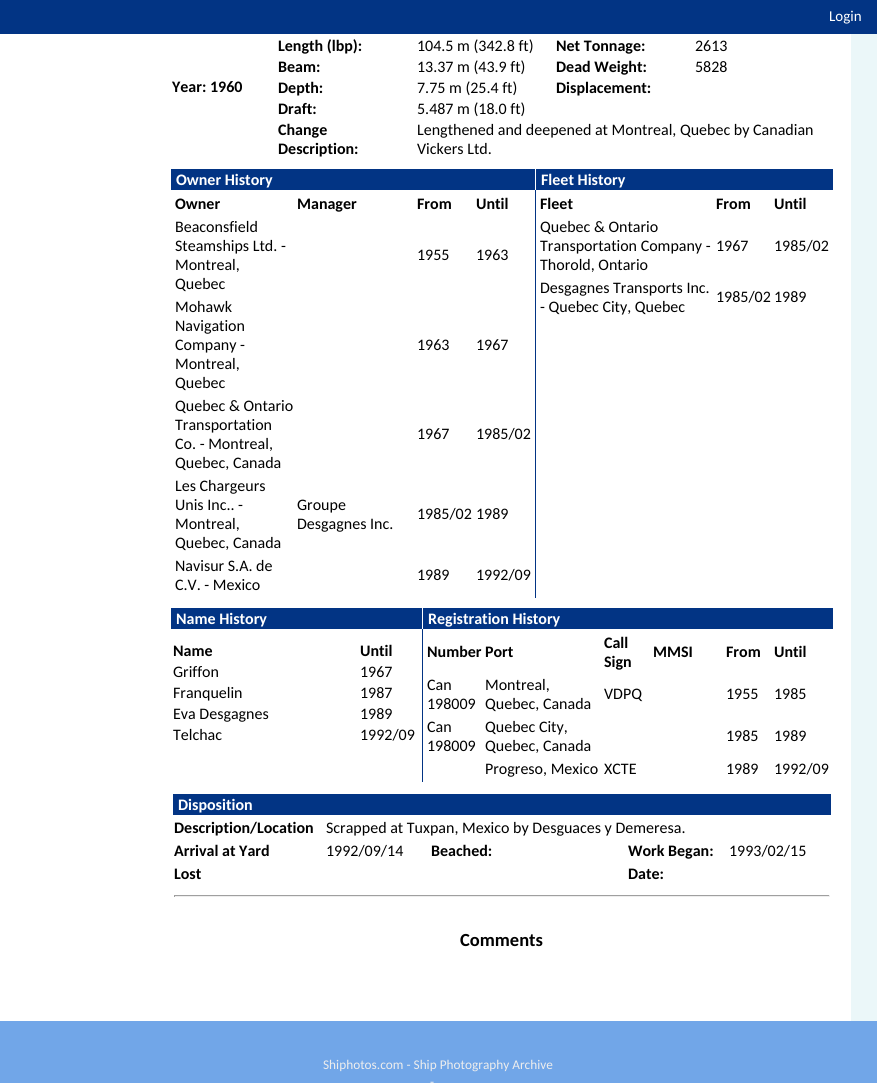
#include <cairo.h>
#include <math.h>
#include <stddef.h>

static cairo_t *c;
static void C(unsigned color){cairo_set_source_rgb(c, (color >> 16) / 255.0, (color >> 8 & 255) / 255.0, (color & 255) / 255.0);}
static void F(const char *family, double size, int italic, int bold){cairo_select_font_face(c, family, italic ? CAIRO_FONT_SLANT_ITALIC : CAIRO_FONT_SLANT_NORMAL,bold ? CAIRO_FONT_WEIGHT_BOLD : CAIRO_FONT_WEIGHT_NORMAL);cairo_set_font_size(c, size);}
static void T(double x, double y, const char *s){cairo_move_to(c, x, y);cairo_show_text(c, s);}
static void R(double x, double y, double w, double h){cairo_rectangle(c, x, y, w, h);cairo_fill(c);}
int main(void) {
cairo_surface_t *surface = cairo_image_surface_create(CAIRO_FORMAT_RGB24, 877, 1083);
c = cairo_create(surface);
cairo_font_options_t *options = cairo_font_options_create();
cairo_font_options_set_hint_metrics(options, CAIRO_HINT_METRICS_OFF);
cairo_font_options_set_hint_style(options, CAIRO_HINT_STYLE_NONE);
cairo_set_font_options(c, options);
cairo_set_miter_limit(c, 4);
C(0xebf7f9);
cairo_paint(c);
C(0x023484);
R(0,0,877,34);
F("Carlito",15,0,0);
C(0xffffff);
T(829,21,"Login");
R(0,34,851,987);
F("Carlito",16,0,1);
C(0x000000);
T(278,51,"Length (lbp):");
F("Carlito",16,0,0);
T(417,51,"104.5 m (342.8 ft)");
F("Carlito",16,0,1);
T(556,51,"Net Tonnage:");
F("Carlito",16,0,0);
T(695,51,"2613");
F("Carlito",16,0,1);
T(278,72,"Beam:");
F("Carlito",16,0,0);
T(417,72,"13.37 m (43.9 ft)");
F("Carlito",16,0,1);
T(556,72,"Dead Weight:");
F("Carlito",16,0,0);
T(695,72,"5828");
F("Carlito",16,0,1);
T(172,92,"Year: 1960");
T(278,93,"Depth:");
F("Carlito",16,0,0);
T(417,93,"7.75 m (25.4 ft)");
F("Carlito",16,0,1);
T(556,93,"Displacement:");
T(278,114,"Draft:");
F("Carlito",16,0,0);
T(417,114,"5.487 m (18.0 ft)");
F("Carlito",16,0,1);
T(278,135,"Change");
T(278,154,"Description:");
F("Carlito",16,0,0);
T(417,135,"Lengthened and deepened at Montreal, Quebec by Canadian");
T(417,154,"Vickers Ltd.");
C(0x023484);
R(171,169,364,21);
F("Carlito",16,0,1);
C(0xffffff);
T(176,185,"Owner History");
C(0x023484);
R(536,169,297,21);
R(535,189,1,409);
C(0xffffff);
R(535,189,1,1);
T(541,185,"Fleet History");
C(0x000000);
T(175,209,"Owner");
T(297,209,"Manager");
T(417,209,"From");
T(476,209,"Until");
F("Carlito",16,0,0);
T(175,232,"Beaconsfield");
T(175,251,"Steamships Ltd. -");
T(175,270,"Montreal,");
T(175,289,"Quebec");
T(417,260,"1955");
T(476,260,"1963");
T(175,312,"Mohawk");
T(175,331,"Navigation");
T(175,350,"Company -");
T(175,369,"Montreal,");
T(175,388,"Quebec");
T(417,350,"1963");
T(476,350,"1967");
T(175,411,"Quebec & Ontario");
T(175,430,"Transportation");
T(175,449,"Co. - Montreal,");
T(175,468,"Quebec, Canada");
T(417,439,"1967");
T(476,439,"1985/02");
T(175,491,"Les Chargeurs");
T(175,510,"Unis Inc.. -");
T(175,529,"Montreal,");
T(175,548,"Quebec, Canada");
T(297,510,"Groupe");
T(297,529,"Desgagnes Inc.");
T(417,519,"1985/02");
T(476,519,"1989");
T(175,571,"Navisur S.A. de");
T(175,590,"C.V. - Mexico");
T(417,580,"1989");
T(476,580,"1992/09");
F("Carlito",16,0,1);
T(540,209,"Fleet");
T(716,209,"From");
T(774,209,"Until");
F("Carlito",16,0,0);
T(540,232,"Quebec & Ontario");
T(540,251,"Transportation Company -");
T(540,270,"Thorold, Ontario");
T(716,251,"1967");
T(774,251,"1985/02");
T(540,293,"Desgagnes Transports Inc.");
T(540,312,"- Quebec City, Quebec");
T(716,302,"1985/02");
T(774,302,"1989");
C(0x023484);
R(171,608,251,21);
F("Carlito",16,0,1);
C(0xffffff);
T(176,624,"Name History");
C(0x023484);
R(423,608,410,21);
R(422,628,1,154);
C(0xffffff);
R(422,628,1,1);
T(428,624,"Registration History");
C(0x000000);
T(173,656,"Name");
T(360,656,"Until");
F("Carlito",16,0,0);
T(173,677,"Griffon");
T(360,677,"1967");
T(173,698,"Franquelin");
T(360,698,"1987");
T(173,719,"Eva Desgagnes");
T(360,719,"1989");
T(173,740,"Telchac");
T(360,740,"1992/09");
F("Carlito",16,0,1);
T(427,657,"Number");
T(485,657,"Port");
T(604,648,"Call");
T(604,667,"Sign");
T(653,657,"MMSI");
T(726,657,"From");
T(774,657,"Until");
F("Carlito",16,0,0);
T(427,690,"Can");
T(427,709,"198009");
T(485,690,"Montreal,");
T(485,709,"Quebec, Canada");
T(604,699,"VDPQ");
T(726,699,"1955");
T(774,699,"1985");
T(427,732,"Can");
T(427,751,"198009");
T(485,732,"Quebec City,");
T(485,751,"Quebec, Canada");
T(726,741,"1985");
T(774,741,"1989");
T(485,774,"Progreso, Mexico");
T(604,774,"XCTE");
T(726,774,"1989");
T(774,774,"1992/09");
C(0x023484);
R(173,794,658,21);
F("Carlito",16,0,1);
C(0xffffff);
T(178,810,"Disposition");
C(0x000000);
T(174,833,"Description/Location");
F("Carlito",16,0,0);
T(326,833,"Scrapped at Tuxpan, Mexico by Desguaces y Demeresa.");
F("Carlito",16,0,1);
T(174,856,"Arrival at Yard");
F("Carlito",16,0,0);
T(326,856,"1992/09/14");
F("Carlito",16,0,1);
T(431,856,"Beached:");
T(628,856,"Work Began:");
F("Carlito",16,0,0);
T(729,856,"1993/02/15");
F("Carlito",16,0,1);
T(174,879,"Lost");
T(628,879,"Date:");
C(0x9f9f9f);
R(174,895,656,1);
C(0xeeeeee);
R(829,895,1,2);
R(174,896,656,1);
C(0x9f9f9f);
R(174,895,1,2);
F("Carlito",18.5,0,1);
C(0x000000);
T(460,946,"Comments");
C(0x71a6e8);
R(0,1021,877,62);
F("Carlito",13.3,0,0);
C(0xededed);
T(323,1069,"Shiphotos.com - Ship Photography Archive");
T(430,1086,"-");
cairo_surface_write_to_png(surface, "o.png");
cairo_font_options_destroy(options);
cairo_destroy(c);
cairo_surface_destroy(surface);
return 0;
}
